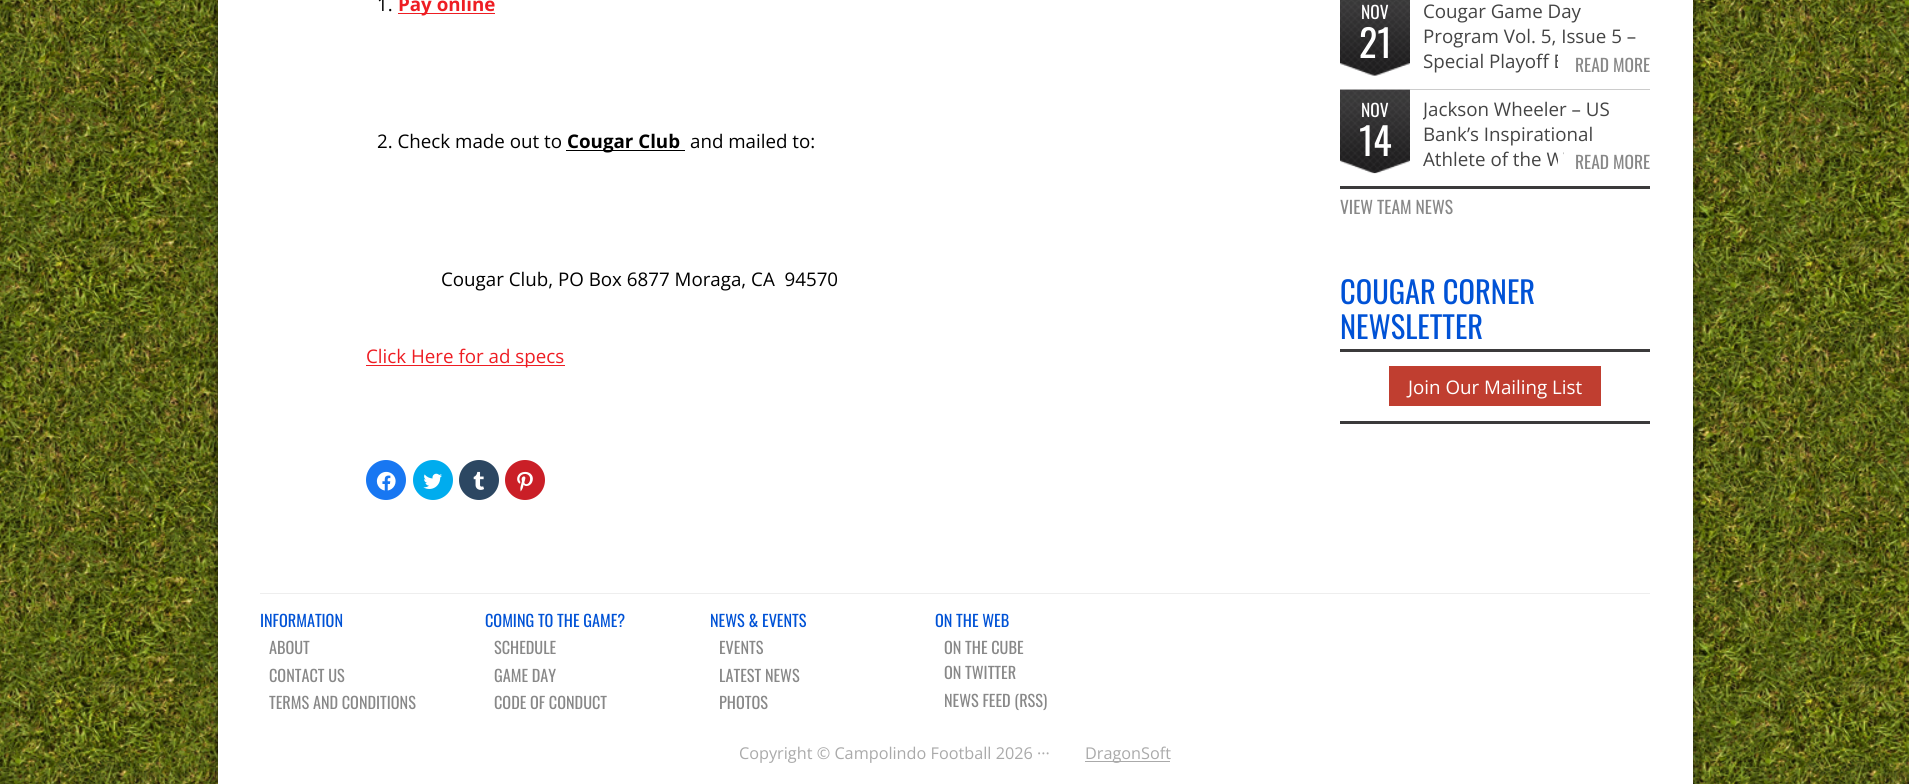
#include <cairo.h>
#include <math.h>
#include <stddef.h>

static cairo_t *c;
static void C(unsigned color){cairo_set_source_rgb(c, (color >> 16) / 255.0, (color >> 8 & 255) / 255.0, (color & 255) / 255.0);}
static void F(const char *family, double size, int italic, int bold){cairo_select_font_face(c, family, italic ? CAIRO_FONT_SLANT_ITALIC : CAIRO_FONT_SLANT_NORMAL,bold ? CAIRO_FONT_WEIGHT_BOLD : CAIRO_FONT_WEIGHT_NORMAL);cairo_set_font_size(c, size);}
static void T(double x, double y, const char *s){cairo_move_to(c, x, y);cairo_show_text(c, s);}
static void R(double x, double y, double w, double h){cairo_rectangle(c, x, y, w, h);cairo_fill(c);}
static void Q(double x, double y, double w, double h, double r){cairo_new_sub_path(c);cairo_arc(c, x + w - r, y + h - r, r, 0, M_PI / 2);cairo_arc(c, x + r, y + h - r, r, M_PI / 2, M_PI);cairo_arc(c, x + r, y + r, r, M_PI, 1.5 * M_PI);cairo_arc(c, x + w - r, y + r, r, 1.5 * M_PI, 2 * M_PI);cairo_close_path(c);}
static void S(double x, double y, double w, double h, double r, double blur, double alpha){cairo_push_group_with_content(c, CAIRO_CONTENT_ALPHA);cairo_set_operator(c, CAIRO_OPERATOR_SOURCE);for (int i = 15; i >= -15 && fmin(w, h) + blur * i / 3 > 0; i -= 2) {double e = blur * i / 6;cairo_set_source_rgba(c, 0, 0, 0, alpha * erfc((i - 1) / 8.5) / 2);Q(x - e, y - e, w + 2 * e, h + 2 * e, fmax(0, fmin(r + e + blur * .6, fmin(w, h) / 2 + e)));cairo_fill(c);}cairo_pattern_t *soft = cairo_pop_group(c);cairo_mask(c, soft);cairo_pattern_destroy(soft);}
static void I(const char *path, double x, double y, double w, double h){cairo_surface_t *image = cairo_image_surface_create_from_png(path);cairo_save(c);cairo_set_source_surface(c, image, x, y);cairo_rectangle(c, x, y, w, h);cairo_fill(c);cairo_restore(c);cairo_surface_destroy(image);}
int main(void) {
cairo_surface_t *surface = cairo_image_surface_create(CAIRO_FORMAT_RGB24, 1909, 784);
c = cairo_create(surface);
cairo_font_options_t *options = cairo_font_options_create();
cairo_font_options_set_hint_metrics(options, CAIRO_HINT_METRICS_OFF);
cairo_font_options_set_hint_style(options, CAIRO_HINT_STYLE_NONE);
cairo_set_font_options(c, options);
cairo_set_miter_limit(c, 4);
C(0xffffff);
cairo_paint(c);
I("1.png",0,0,1909,784);
C(0x000000);
S(218,-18,1475,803,0,6,.5);
C(0xffffff);
R(218,0,1475,784);
F("Open Sans",18.75,0,0);
C(0x000000);
T(377,11,"1.");
C(0xee1d23);
R(398,13,97,1);
F("Open Sans",18.75,0,1);
T(398,11,"Pay online");
F("Open Sans",18.75,0,0);
C(0x000000);
T(377,148,"2. Check made out to");
R(566,150,119,1);
F("Open Sans",18.75,0,1);
T(567,148,"Cougar Club");
F("Open Sans",18.75,0,0);
T(690,148,"and mailed to:");
T(441,286,"Cougar Club, PO Box 6877 Moraga, CA  94570");
C(0xee1d23);
R(366,365,199,1);
T(366,363,"Click Here for ad specs");
C(0x1877f2);
cairo_new_path(c);
cairo_arc(c,386,480,20,0,2 * M_PI);
cairo_fill(c);
I("2.png",376,471,20,20);
C(0x00acee);
cairo_arc(c,433,480,20,0,2 * M_PI);
cairo_fill(c);
I("3.png",423,473,19,16);
C(0x2c4762);
cairo_arc(c,479,480,20,0,2 * M_PI);
cairo_fill(c);
I("4.png",473,471,11,19);
C(0xca1f27);
cairo_arc(c,525,480,20,0,2 * M_PI);
cairo_fill(c);
I("5.png",517,471,16,21);
C(0x3b3a3b);
R(1340,186,310,3);
I("6.png",1340,0,70,76);
F("Oswald",17.5,0,0);
C(0xffffff);
T(1361,19,"NOV");
F("Oswald",38,0,0);
T(1359,58,"21");
F("Open Sans",18.75,0,0);
C(0x444444);
T(1423,18,"Cougar Game Day");
T(1423,43,"Program Vol. 5, Issue 5 –");
T(1423,68,"Special Playoff E");
C(0xffffff);
R(1558,54,5,14);
F("Oswald",17.5,0,0);
C(0x888888);
T(1575,72,"READ MORE");
C(0xcccccc);
R(1340,89,310,1);
I("7.png",1340,89,70,85);
C(0xffffff);
T(1361,117,"NOV");
F("Oswald",38,0,0);
T(1359,156,"14");
cairo_save(c);
cairo_rectangle(c,1423,93,227,77);
cairo_clip(c);
F("Open Sans",18.75,0,0);
C(0x444444);
T(1423,116,"Jackson Wheeler – US");
cairo_restore(c);
F("Open Sans",18.75,0,0);
C(0x444444);
T(1423,141,"Bank’s Inspirational");
T(1423,166,"Athlete of the W");
C(0xffffff);
R(1558,152,5,14);
F("Oswald",17.5,0,0);
C(0x888888);
T(1575,169,"READ MORE");
T(1340,214,"VIEW TEAM NEWS");
C(0x3b3a3b);
R(1340,421,310,3);
R(1340,349,310,3);
F("Oswald",30.5,0,0);
C(0x0052d6);
T(1340,304,"COUGAR CORNER");
T(1340,339,"NEWSLETTER");
C(0xc03e30);
R(1389,366,212,40);
F("Open Sans",18.75,0,0);
C(0xffffff);
T(1408,394,"Join Our Mailing List");
C(0xeeeeee);
R(260,593,1390,1);
F("Oswald",16.25,0,0);
C(0x0052d6);
T(260,627,"INFORMATION");
C(0x888888);
T(269,654,"ABOUT");
T(269,682,"CONTACT US");
T(269,709,"TERMS AND CONDITIONS");
C(0x0052d6);
T(485,627,"COMING TO THE GAME?");
C(0x888888);
T(494,654,"SCHEDULE");
T(494,682,"GAME DAY");
T(494,709,"CODE OF CONDUCT");
C(0x0052d6);
T(710,627,"NEWS & EVENTS");
C(0x888888);
T(719,654,"EVENTS");
T(719,682,"LATEST NEWS");
T(719,709,"PHOTOS");
C(0x0052d6);
T(935,627,"ON THE WEB");
C(0x888888);
T(944,654,"ON THE CUBE");
T(944,679,"ON TWITTER");
T(944,707,"NEWS FEED (RSS)");
F("Open Sans",16.25,0,0);
C(0xaaaaaa);
T(739,759,"Copyright © Campolindo Football 2026 ···");
R(1085,761,85,1);
T(1085,759,"DragonSoft");
cairo_surface_write_to_png(surface, "o.png");
cairo_font_options_destroy(options);
cairo_destroy(c);
cairo_surface_destroy(surface);
return 0;
}
